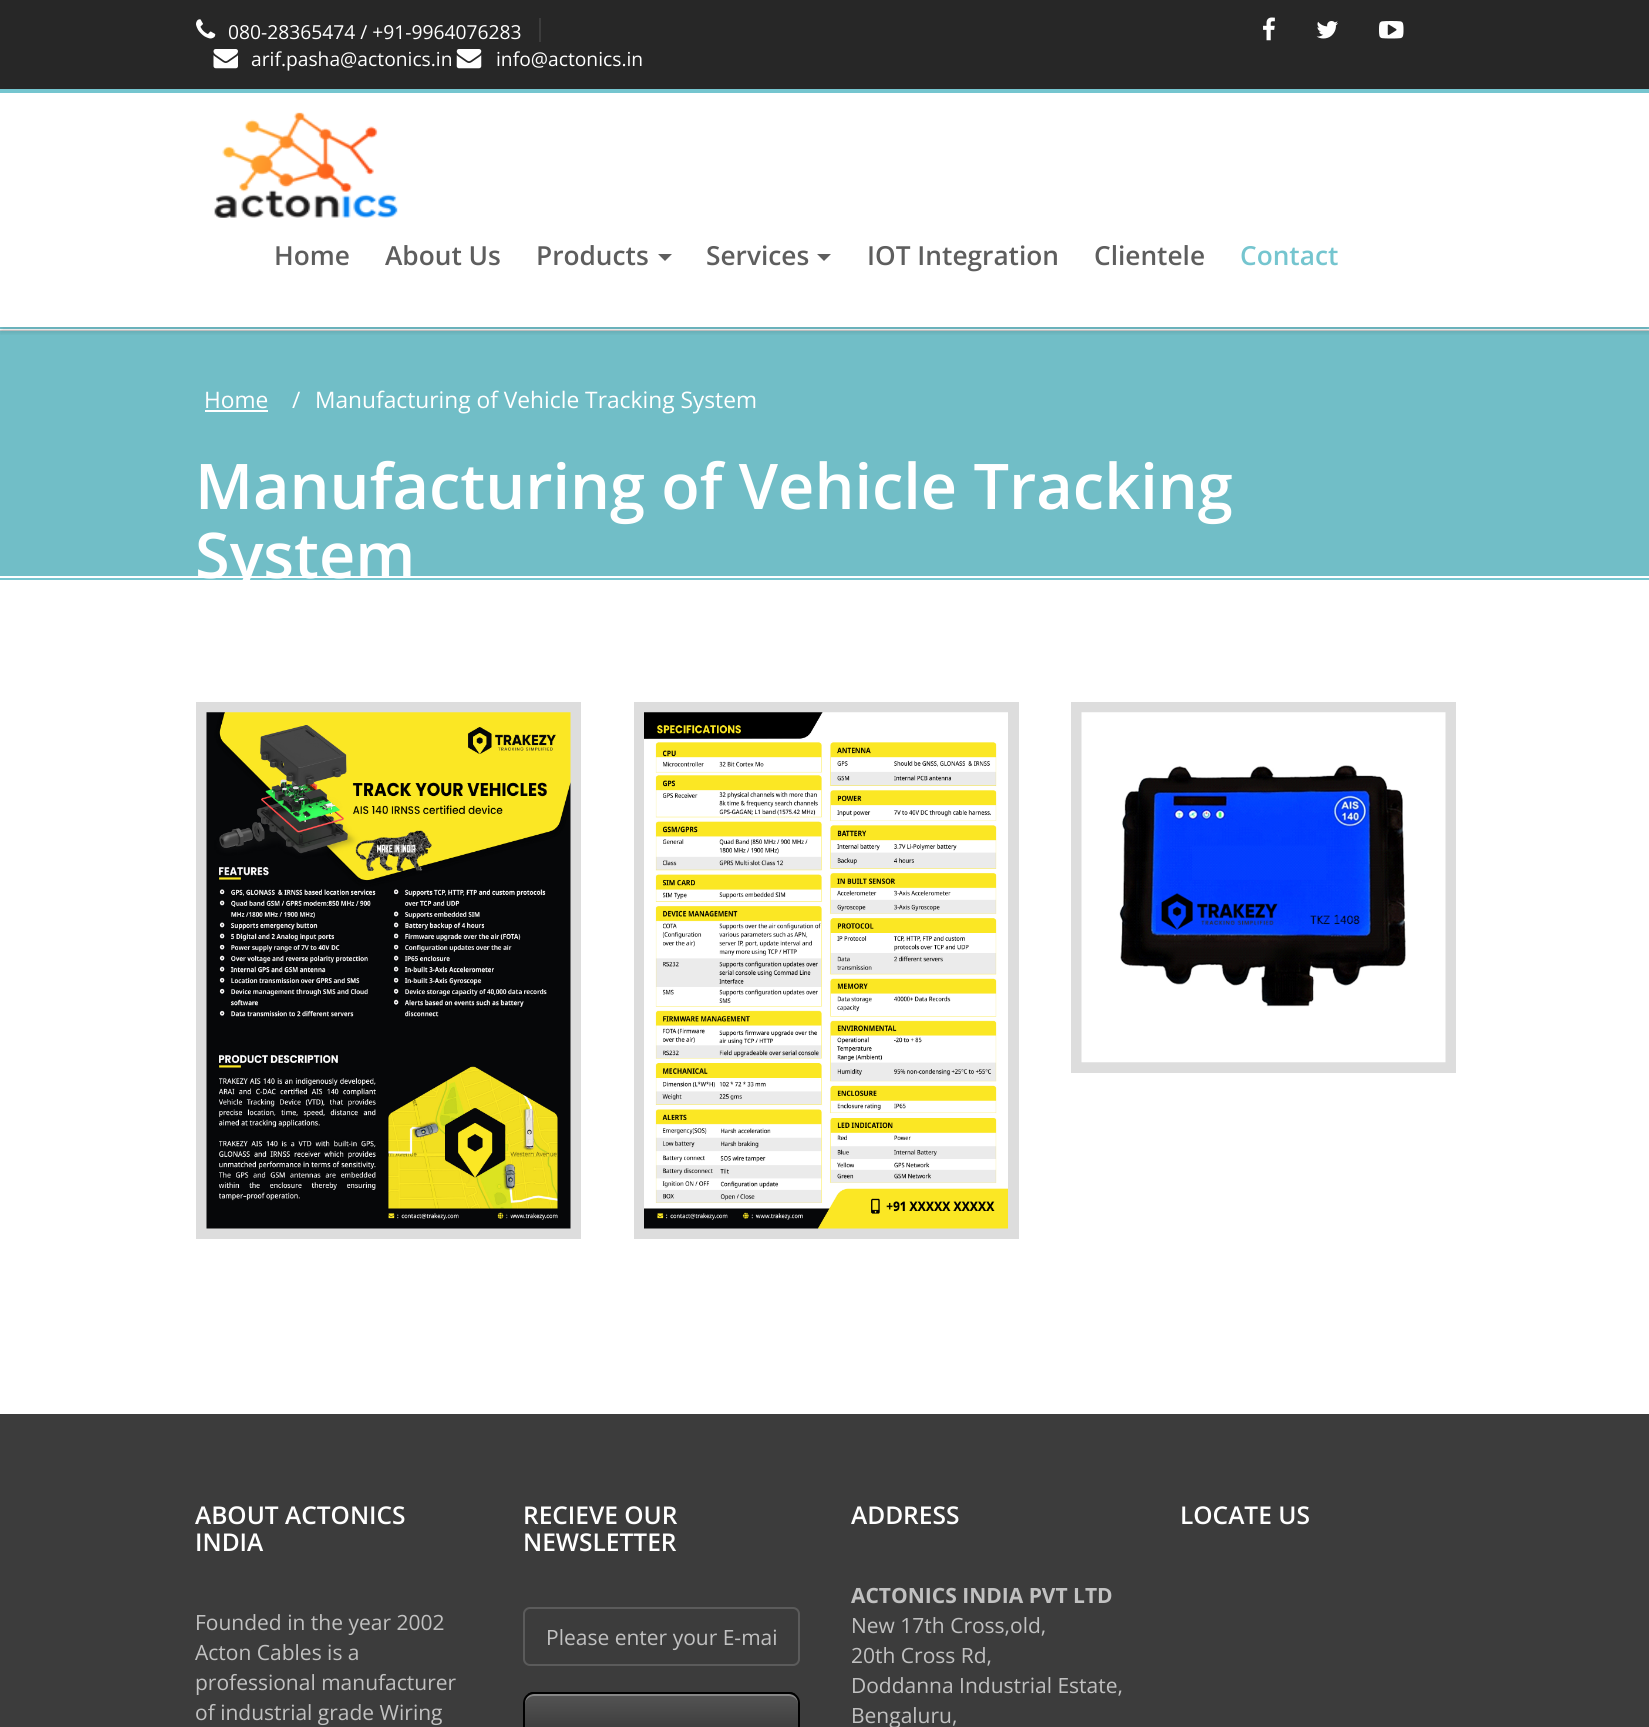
#include <cairo.h>
#include <math.h>
#include <stddef.h>

static cairo_t *c;
static void C(unsigned color){cairo_set_source_rgb(c, (color >> 16) / 255.0, (color >> 8 & 255) / 255.0, (color & 255) / 255.0);}
static void F(const char *family, double size, int italic, int bold){cairo_select_font_face(c, family, italic ? CAIRO_FONT_SLANT_ITALIC : CAIRO_FONT_SLANT_NORMAL,bold ? CAIRO_FONT_WEIGHT_BOLD : CAIRO_FONT_WEIGHT_NORMAL);cairo_set_font_size(c, size);}
static void T(double x, double y, const char *s){cairo_move_to(c, x, y);cairo_show_text(c, s);}
static void R(double x, double y, double w, double h){cairo_rectangle(c, x, y, w, h);cairo_fill(c);}
static void Q(double x, double y, double w, double h, double r){cairo_new_sub_path(c);cairo_arc(c, x + w - r, y + h - r, r, 0, M_PI / 2);cairo_arc(c, x + r, y + h - r, r, M_PI / 2, M_PI);cairo_arc(c, x + r, y + r, r, M_PI, 1.5 * M_PI);cairo_arc(c, x + w - r, y + r, r, 1.5 * M_PI, 2 * M_PI);cairo_close_path(c);}
static void S(double x, double y, double w, double h, double r, double blur, double alpha){cairo_push_group_with_content(c, CAIRO_CONTENT_ALPHA);cairo_set_operator(c, CAIRO_OPERATOR_SOURCE);for (int i = 15; i >= -15 && fmin(w, h) + blur * i / 3 > 0; i -= 2) {double e = blur * i / 6;cairo_set_source_rgba(c, 0, 0, 0, alpha * erfc((i - 1) / 8.5) / 2);Q(x - e, y - e, w + 2 * e, h + 2 * e, fmax(0, fmin(r + e + blur * .6, fmin(w, h) / 2 + e)));cairo_fill(c);}cairo_pattern_t *soft = cairo_pop_group(c);cairo_mask(c, soft);cairo_pattern_destroy(soft);}
static void I(const char *path, double x, double y, double w, double h){cairo_surface_t *image = cairo_image_surface_create_from_png(path);cairo_save(c);cairo_set_source_surface(c, image, x, y);cairo_rectangle(c, x, y, w, h);cairo_fill(c);cairo_restore(c);cairo_surface_destroy(image);}
int main(void) {
cairo_surface_t *surface = cairo_image_surface_create(CAIRO_FORMAT_RGB24, 1649, 1727);
c = cairo_create(surface);
cairo_font_options_t *options = cairo_font_options_create();
cairo_font_options_set_hint_metrics(options, CAIRO_HINT_METRICS_OFF);
cairo_font_options_set_hint_style(options, CAIRO_HINT_STYLE_NONE);
cairo_set_font_options(c, options);
cairo_set_miter_limit(c, 4);
cairo_pattern_t *gradient;
C(0xffffff);
cairo_paint(c);
C(0x272727);
R(0,0,1649,89);
C(0x3c3c3c);
R(539,18,2,24);
I("1.png",196,19,20,20);
F("Open Sans",19.25,0,0);
C(0xffffff);
T(228,39,"080-28365474 / +91-9964076283");
I("2.png",213,49,25,20);
T(251,66,"arif.pasha@actonics.in");
I("3.png",456,49,26,20);
T(496,66,"info@actonics.in");
I("4.png",1263,17,12,24);
I("5.png",1316,21,22,18);
I("6.png",1379,21,25,18);
C(0x75c5cf);
R(0,89,1649,4);
R(0,327,1649,2);
C(0xcccccc);
R(0,330,1649,1);
C(0x71bec7);
R(0,331,1649,245);
cairo_save(c);
cairo_rectangle(c,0,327,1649,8);
cairo_clip(c);
C(0x000000);
S(0,98,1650,235,0,2.5,.1);
cairo_restore(c);
I("7.png",214,112,184,106);
F("Open Sans SemiBold",26.25,0,0);
C(0x5e5e5e);
T(274,265,"Home");
T(385,265,"About Us");
T(536,265,"Products");
cairo_new_path(c);
cairo_move_to(c,658,254);
cairo_line_to(c,672,254);
cairo_line_to(c,665,261);
cairo_close_path(c);
cairo_fill(c);
T(706,265,"Services");
cairo_new_path(c);
cairo_move_to(c,817,254);
cairo_line_to(c,831,254);
cairo_line_to(c,824,261);
cairo_close_path(c);
cairo_fill(c);
T(867,265,"IOT Integration");
T(1094,265,"Clientele");
C(0x75c5cf);
T(1240,265,"Contact");
R(0,578,1649,2);
F("Open Sans",22.75,0,0);
C(0xffffff);
T(204,408,"Home");
R(205,410,63,2);
T(292,408,"/");
T(315,408,"Manufacturing of Vehicle Tracking System");
F("Open Sans SemiBold",63,0,0);
T(195,509,"Manufacturing of Vehicle Tracking");
T(195,578,"System");
C(0xdddddd);
R(196,702,385,537);
I("8.png",206,712,365,517);
R(634,702,385,537);
I("9.png",644,712,364,517);
R(1071,702,385,371);
I("10.png",1081,712,365,351);
C(0x3c3c3c);
R(0,1414,1649,313);
F("Open Sans SemiBold",24.5,0,0);
C(0xffffff);
T(195,1524,"ABOUT ACTONICS");
T(195,1551,"INDIA");
F("Open Sans",21,0,0);
C(0xc1c1c1);
T(195,1630,"Founded in the year 2002");
T(195,1660,"Acton Cables is a");
T(195,1690,"professional manufacturer");
T(195,1720,"of industrial grade Wiring");
F("Open Sans SemiBold",24.5,0,0);
C(0xffffff);
T(523,1524,"RECIEVE OUR");
T(523,1551,"NEWSLETTER");
Q(524,1608,275,57,6);
C(0x5b5b5b);
cairo_stroke(c);
F("Open Sans",21,0,0);
C(0xc1c1c1);
T(546,1645,"Please enter your E-mai");
C(0x000000);
Q(523,1692,277,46,11);
cairo_fill(c);
cairo_save(c);
Q(523,1692,277,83,11);
cairo_clip(c);
gradient = cairo_pattern_create_linear(662,1694,662,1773);
cairo_pattern_add_color_stop_rgba(gradient,0,1,1,1,.33);
cairo_pattern_add_color_stop_rgba(gradient,1,1,1,1,.13);
cairo_set_source(c,gradient);
cairo_pattern_destroy(gradient);
R(523,1694,277,33);
cairo_restore(c);
cairo_set_source_rgba(c,1,1,1,0.3);
cairo_new_path(c);
cairo_move_to(c,534,1696);
cairo_line_to(c,789,1696);
cairo_curve_to(c,794,1696,798,1700,798,1704);
cairo_line_to(c,798,1703);
cairo_curve_to(c,798,1698,794,1694,789,1694);
cairo_line_to(c,534,1694);
cairo_curve_to(c,529,1694,525,1698,525,1703);
cairo_line_to(c,525,1704);
cairo_curve_to(c,525,1700,529,1696,534,1696);
cairo_close_path(c);
cairo_fill(c);
Q(524,1693,275,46,10);
C(0x000000);
cairo_stroke(c);
F("Open Sans SemiBold",24.5,0,0);
C(0xffffff);
T(851,1524,"ADDRESS");
F("Open Sans",21,0,1);
C(0xc1c1c1);
T(851,1603,"ACTONICS INDIA PVT LTD");
F("Open Sans",21,0,0);
T(851,1633,"New 17th Cross,old,");
T(851,1663,"20th Cross Rd,");
T(851,1693,"Doddanna Industrial Estate,");
T(851,1723,"Bengaluru,");
F("Open Sans SemiBold",24.5,0,0);
C(0xffffff);
T(1180,1524,"LOCATE US");
cairo_surface_write_to_png(surface, "o.png");
cairo_font_options_destroy(options);
cairo_destroy(c);
cairo_surface_destroy(surface);
return 0;
}
